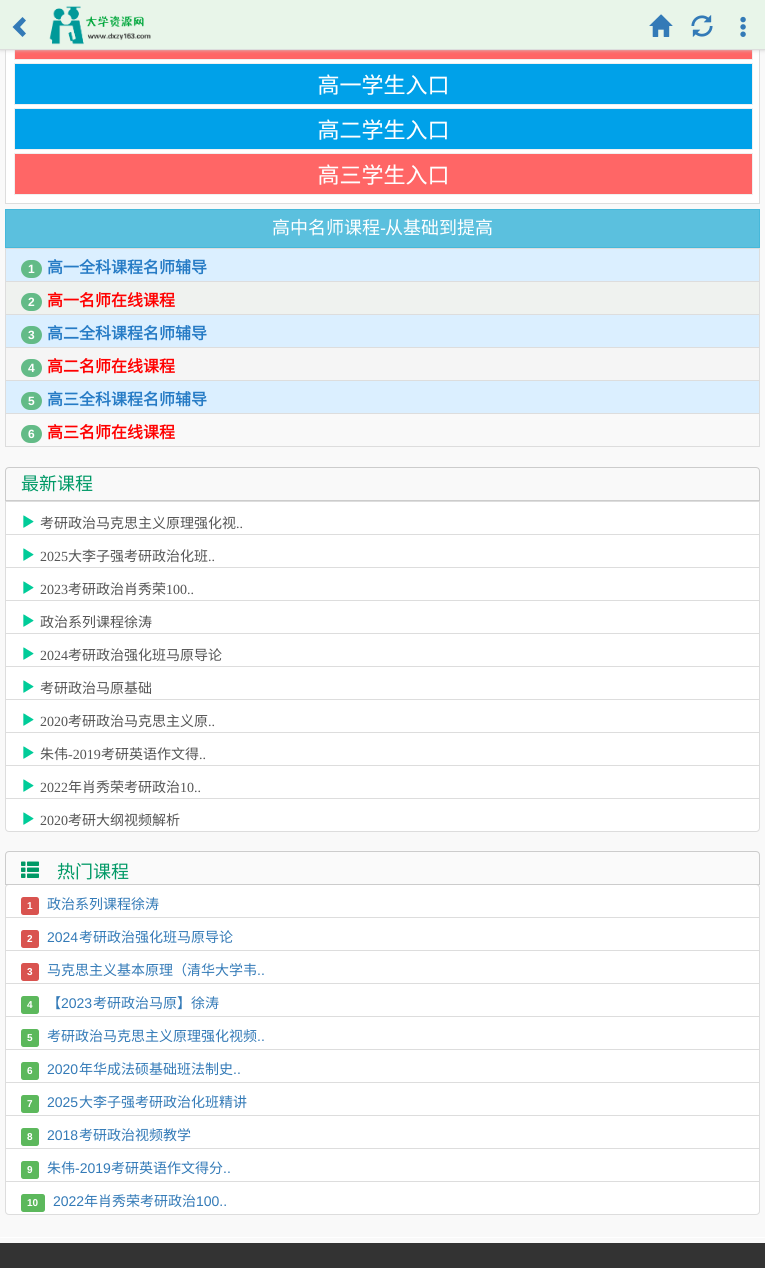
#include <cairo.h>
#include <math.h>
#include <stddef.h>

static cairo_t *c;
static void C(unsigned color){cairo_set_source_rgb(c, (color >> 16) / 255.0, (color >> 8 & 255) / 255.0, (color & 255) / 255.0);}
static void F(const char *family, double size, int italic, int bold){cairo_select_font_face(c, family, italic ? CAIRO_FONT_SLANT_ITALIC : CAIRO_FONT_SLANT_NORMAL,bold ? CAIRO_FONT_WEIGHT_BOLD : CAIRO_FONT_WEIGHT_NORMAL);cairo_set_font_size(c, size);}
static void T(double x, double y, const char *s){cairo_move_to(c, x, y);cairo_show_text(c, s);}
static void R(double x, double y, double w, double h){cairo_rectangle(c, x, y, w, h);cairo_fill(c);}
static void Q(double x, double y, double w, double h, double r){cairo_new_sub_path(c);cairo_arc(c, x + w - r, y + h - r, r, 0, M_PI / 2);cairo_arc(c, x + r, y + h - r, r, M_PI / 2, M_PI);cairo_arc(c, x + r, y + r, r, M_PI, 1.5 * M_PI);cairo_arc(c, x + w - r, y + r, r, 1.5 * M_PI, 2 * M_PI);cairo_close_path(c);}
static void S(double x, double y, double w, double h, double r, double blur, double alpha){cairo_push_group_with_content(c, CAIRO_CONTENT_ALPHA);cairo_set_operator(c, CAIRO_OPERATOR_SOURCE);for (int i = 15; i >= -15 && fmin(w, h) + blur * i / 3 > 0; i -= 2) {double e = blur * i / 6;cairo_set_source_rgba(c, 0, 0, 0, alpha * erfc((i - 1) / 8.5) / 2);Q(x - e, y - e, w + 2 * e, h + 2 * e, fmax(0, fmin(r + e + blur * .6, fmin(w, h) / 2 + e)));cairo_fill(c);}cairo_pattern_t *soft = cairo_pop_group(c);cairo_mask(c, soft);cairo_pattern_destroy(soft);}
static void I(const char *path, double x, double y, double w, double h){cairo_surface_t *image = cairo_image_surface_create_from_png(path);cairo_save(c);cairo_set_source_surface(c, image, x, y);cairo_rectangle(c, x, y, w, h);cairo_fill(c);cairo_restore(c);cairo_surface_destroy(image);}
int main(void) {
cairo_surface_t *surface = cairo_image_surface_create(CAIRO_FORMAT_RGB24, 765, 1268);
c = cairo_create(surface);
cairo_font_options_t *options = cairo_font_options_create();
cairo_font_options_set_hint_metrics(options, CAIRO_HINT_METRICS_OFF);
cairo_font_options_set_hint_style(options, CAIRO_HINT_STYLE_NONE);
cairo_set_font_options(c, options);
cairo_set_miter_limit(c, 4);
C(0xf9f9f9);
cairo_paint(c);
C(0xffffff);
R(6,50,753,153);
cairo_rectangle(c,5.5,-.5,754,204);
C(0xdddddd);
cairo_set_line_width(c,1);
cairo_stroke(c);
I("5.png",14,50,739,145);
C(0xcccccc);
S(0,0,765,50,0,2,1);
C(0xe8f5e9);
R(0,0,765,49);
C(0xdddddd);
R(0,49,765,1);
C(0x337ab7);
cairo_new_path(c);
cairo_move_to(c,26,20.5);
cairo_line_to(c,20,27);
cairo_line_to(c,26,33.5);
cairo_line_to(c,22.5,37);
cairo_line_to(c,12.5,27);
cairo_line_to(c,22.5,17);
cairo_close_path(c);
cairo_fill(c);
I("1.png",49,6,102,39);
I("2.png",649,14,24,23);
I("3.png",691,15,22,22);
I("4.png",740,16,6,21);
C(0x5bc0de);
cairo_rectangle(c,5.5,209.5,754,38);
cairo_fill_preserve(c);
C(0x46b8da);
cairo_stroke(c);
F("Noto Sans CJK SC",18,0,0);
C(0xffffff);
T(272,234,"高中名师课程");
F("Liberation Sans",18,0,0);
T(380,234,"-");
F("Noto Sans CJK SC",18,0,0);
T(385,234,"从基础到提高");
C(0xdbefff);
cairo_rectangle(c,5.5,248.5,754,33);
cairo_fill_preserve(c);
C(0xdddddd);
cairo_stroke(c);
C(0x63bb87);
Q(21,260,21,18,9);
cairo_fill(c);
F("Liberation Sans",12,0,1);
C(0xffffff);
T(28,273,"1");
F("Noto Sans CJK SC",16,0,1);
C(0x267bc5);
T(47,273,"高一全科课程名师辅导");
C(0xeff2ef);
cairo_rectangle(c,5.5,281.5,754,33);
cairo_fill_preserve(c);
C(0xdddddd);
cairo_stroke(c);
C(0x63bb87);
Q(21,293,21,18,9);
cairo_fill(c);
F("Liberation Sans",12,0,1);
C(0xffffff);
T(28,306,"2");
F("Noto Sans CJK SC",16,0,1);
C(0xff0000);
T(47,306,"高一名师在线课程");
C(0xdbefff);
cairo_rectangle(c,5.5,314.5,754,33);
cairo_fill_preserve(c);
C(0xdddddd);
cairo_stroke(c);
C(0x63bb87);
Q(21,326,21,18,9);
cairo_fill(c);
F("Liberation Sans",12,0,1);
C(0xffffff);
T(28,339,"3");
F("Noto Sans CJK SC",16,0,1);
C(0x267bc5);
T(47,339,"高二全科课程名师辅导");
C(0xf5f5f5);
cairo_rectangle(c,5.5,347.5,754,33);
cairo_fill_preserve(c);
C(0xdddddd);
cairo_stroke(c);
C(0x63bb87);
Q(21,359,21,18,9);
cairo_fill(c);
F("Liberation Sans",12,0,1);
C(0xffffff);
T(28,372,"4");
F("Noto Sans CJK SC",16,0,1);
C(0xff0000);
T(47,372,"高二名师在线课程");
C(0xdbefff);
cairo_rectangle(c,5.5,380.5,754,33);
cairo_fill_preserve(c);
C(0xdddddd);
cairo_stroke(c);
C(0x63bb87);
Q(21,392,21,18,9);
cairo_fill(c);
F("Liberation Sans",12,0,1);
C(0xffffff);
T(28,405,"5");
F("Noto Sans CJK SC",16,0,1);
C(0x267bc5);
T(47,405,"高三全科课程名师辅导");
cairo_rectangle(c,5.5,413.5,754,33);
C(0xdddddd);
cairo_stroke(c);
C(0x63bb87);
Q(21,425,21,18,9);
cairo_fill(c);
F("Liberation Sans",12,0,1);
C(0xffffff);
T(28,438,"6");
F("Noto Sans CJK SC",16,0,1);
C(0xff0000);
T(47,438,"高三名师在线课程");
cairo_new_path(c);
cairo_move_to(c,9,467.5);
cairo_line_to(c,756,467.5);
cairo_curve_to(c,758,467.5,759.5,469,759.5,471);
cairo_line_to(c,759.5,500.5);
cairo_line_to(c,5.5,500.5);
cairo_line_to(c,5.5,471);
cairo_curve_to(c,5.5,469,7,467.5,9,467.5);
cairo_close_path(c);
C(0xcccccc);
cairo_stroke(c);
F("Noto Sans CJK SC",18,0,0);
C(0x009966);
T(21,490,"最新课程");
C(0xffffff);
cairo_rectangle(c,5.5,501.5,754,33);
cairo_fill_preserve(c);
C(0xdddddd);
cairo_stroke(c);
I("6.png",23,515,11,13);
F("Noto Sans CJK SC",14,0,0);
C(0x555555);
T(40,528,"考研政治马克思主义原理强化视");
F("Liberation Serif",14,0,0);
T(236,528,"..");
C(0xffffff);
cairo_rectangle(c,5.5,534.5,754,33);
cairo_fill_preserve(c);
C(0xdddddd);
cairo_stroke(c);
I("6.png",23,548,11,13);
C(0x555555);
T(40,561,"2025");
F("Noto Sans CJK SC",14,0,0);
T(68,561,"大李子强考研政治化班");
F("Liberation Serif",14,0,0);
T(208,561,"..");
C(0xffffff);
cairo_rectangle(c,5.5,567.5,754,33);
cairo_fill_preserve(c);
C(0xdddddd);
cairo_stroke(c);
I("6.png",23,581,11,13);
C(0x555555);
T(40,594,"2023");
F("Noto Sans CJK SC",14,0,0);
T(68,594,"考研政治肖秀荣");
F("Liberation Serif",14,0,0);
T(166,594,"100..");
C(0xffffff);
cairo_rectangle(c,5.5,600.5,754,33);
cairo_fill_preserve(c);
C(0xdddddd);
cairo_stroke(c);
I("6.png",23,614,11,13);
F("Noto Sans CJK SC",14,0,0);
C(0x555555);
T(40,627,"政治系列课程徐涛");
C(0xffffff);
cairo_rectangle(c,5.5,633.5,754,33);
cairo_fill_preserve(c);
C(0xdddddd);
cairo_stroke(c);
I("6.png",23,647,11,13);
F("Liberation Serif",14,0,0);
C(0x555555);
T(40,660,"2024");
F("Noto Sans CJK SC",14,0,0);
T(68,660,"考研政治强化班马原导论");
C(0xffffff);
cairo_rectangle(c,5.5,666.5,754,33);
cairo_fill_preserve(c);
C(0xdddddd);
cairo_stroke(c);
I("6.png",23,680,11,13);
C(0x555555);
T(40,693,"考研政治马原基础");
C(0xffffff);
cairo_rectangle(c,5.5,699.5,754,33);
cairo_fill_preserve(c);
C(0xdddddd);
cairo_stroke(c);
I("6.png",23,713,11,13);
F("Liberation Serif",14,0,0);
C(0x555555);
T(40,726,"2020");
F("Noto Sans CJK SC",14,0,0);
T(68,726,"考研政治马克思主义原");
F("Liberation Serif",14,0,0);
T(208,726,"..");
C(0xffffff);
cairo_rectangle(c,5.5,732.5,754,33);
cairo_fill_preserve(c);
C(0xdddddd);
cairo_stroke(c);
I("6.png",23,746,11,13);
F("Noto Sans CJK SC",14,0,0);
C(0x555555);
T(40,759,"朱伟");
F("Liberation Serif",14,0,0);
T(68,759,"-2019");
F("Noto Sans CJK SC",14,0,0);
T(101,759,"考研英语作文得");
F("Liberation Serif",14,0,0);
T(199,759,"..");
C(0xffffff);
cairo_rectangle(c,5.5,765.5,754,33);
cairo_fill_preserve(c);
C(0xdddddd);
cairo_stroke(c);
I("6.png",23,779,11,13);
C(0x555555);
T(40,792,"2022");
F("Noto Sans CJK SC",14,0,0);
T(68,792,"年肖秀荣考研政治");
F("Liberation Serif",14,0,0);
T(180,792,"10..");
C(0xffffff);
cairo_new_path(c);
cairo_move_to(c,5.5,798.5);
cairo_line_to(c,759.5,798.5);
cairo_line_to(c,759.5,828);
cairo_curve_to(c,759.5,830,758,831.5,756,831.5);
cairo_line_to(c,9,831.5);
cairo_curve_to(c,7,831.5,5.5,830,5.5,828);
cairo_close_path(c);
cairo_fill_preserve(c);
C(0xdddddd);
cairo_stroke(c);
I("6.png",23,812,11,13);
C(0x555555);
T(40,825,"2020");
F("Noto Sans CJK SC",14,0,0);
T(68,825,"考研大纲视频解析");
C(0xffffff);
cairo_new_path(c);
cairo_move_to(c,9,884.5);
cairo_line_to(c,756,884.5);
cairo_curve_to(c,758,884.5,759.5,886,759.5,888);
cairo_line_to(c,759.5,917.5);
cairo_line_to(c,5.5,917.5);
cairo_line_to(c,5.5,888);
cairo_curve_to(c,5.5,886,7,884.5,9,884.5);
cairo_close_path(c);
cairo_fill_preserve(c);
C(0xdddddd);
cairo_stroke(c);
C(0xfafafa);
cairo_new_path(c);
cairo_move_to(c,9,851.5);
cairo_line_to(c,756,851.5);
cairo_curve_to(c,758,851.5,759.5,853,759.5,855);
cairo_line_to(c,759.5,884.5);
cairo_line_to(c,5.5,884.5);
cairo_line_to(c,5.5,855);
cairo_curve_to(c,5.5,853,7,851.5,9,851.5);
cairo_close_path(c);
cairo_fill_preserve(c);
C(0xcccccc);
cairo_stroke(c);
I("7.png",21,861,18,17);
F("Noto Sans CJK SC",18,0,0);
C(0x009966);
T(57,878,"热门课程");
C(0xd9534f);
Q(21,897,18,18,2.5);
cairo_fill(c);
F("Liberation Sans",10,0,1);
C(0xffffff);
T(27,909,"1");
F("Noto Sans CJK SC",14,0,0);
C(0x337ab7);
T(47,909,"政治系列课程徐涛");
C(0xffffff);
cairo_rectangle(c,5.5,917.5,754,33);
cairo_fill_preserve(c);
C(0xdddddd);
cairo_stroke(c);
C(0xd9534f);
Q(21,930,18,18,2.5);
cairo_fill(c);
F("Liberation Sans",10,0,1);
C(0xffffff);
T(27,942,"2");
F("Liberation Sans",14,0,0);
C(0x337ab7);
T(47,942,"2024");
F("Noto Sans CJK SC",14,0,0);
T(79,942,"考研政治强化班马原导论");
C(0xffffff);
cairo_rectangle(c,5.5,950.5,754,33);
cairo_fill_preserve(c);
C(0xdddddd);
cairo_stroke(c);
C(0xd9534f);
Q(21,963,18,18,2.5);
cairo_fill(c);
F("Liberation Sans",10,0,1);
C(0xffffff);
T(27,975,"3");
F("Noto Sans CJK SC",14,0,0);
C(0x337ab7);
T(47,975,"马克思主义基本原理（清华大学韦");
F("Liberation Sans",14,0,0);
T(257,975,"..");
C(0xffffff);
cairo_rectangle(c,5.5,983.5,754,33);
cairo_fill_preserve(c);
C(0xdddddd);
cairo_stroke(c);
C(0x5cb85c);
Q(21,996,18,18,2.5);
cairo_fill(c);
F("Liberation Sans",10,0,1);
C(0xffffff);
T(27,1008,"4");
F("Noto Sans CJK SC",14,0,0);
C(0x337ab7);
T(47,1008,"【");
F("Liberation Sans",14,0,0);
T(61,1008,"2023");
F("Noto Sans CJK SC",14,0,0);
T(93,1008,"考研政治马原】徐涛");
C(0xffffff);
cairo_rectangle(c,5.5,1016.5,754,33);
cairo_fill_preserve(c);
C(0xdddddd);
cairo_stroke(c);
C(0x5cb85c);
Q(21,1029,18,18,2.5);
cairo_fill(c);
F("Liberation Sans",10,0,1);
C(0xffffff);
T(27,1041,"5");
F("Noto Sans CJK SC",14,0,0);
C(0x337ab7);
T(47,1041,"考研政治马克思主义原理强化视频");
F("Liberation Sans",14,0,0);
T(257,1041,"..");
C(0xffffff);
cairo_rectangle(c,5.5,1049.5,754,33);
cairo_fill_preserve(c);
C(0xdddddd);
cairo_stroke(c);
C(0x5cb85c);
Q(21,1062,18,18,2.5);
cairo_fill(c);
F("Liberation Sans",10,0,1);
C(0xffffff);
T(27,1074,"6");
F("Liberation Sans",14,0,0);
C(0x337ab7);
T(47,1074,"2020");
F("Noto Sans CJK SC",14,0,0);
T(79,1074,"年华成法硕基础班法制史");
F("Liberation Sans",14,0,0);
T(233,1074,"..");
C(0xffffff);
cairo_rectangle(c,5.5,1082.5,754,33);
cairo_fill_preserve(c);
C(0xdddddd);
cairo_stroke(c);
C(0x5cb85c);
Q(21,1095,18,18,2.5);
cairo_fill(c);
F("Liberation Sans",10,0,1);
C(0xffffff);
T(27,1107,"7");
F("Liberation Sans",14,0,0);
C(0x337ab7);
T(47,1107,"2025");
F("Noto Sans CJK SC",14,0,0);
T(79,1107,"大李子强考研政治化班精讲");
C(0xffffff);
cairo_rectangle(c,5.5,1115.5,754,33);
cairo_fill_preserve(c);
C(0xdddddd);
cairo_stroke(c);
C(0x5cb85c);
Q(21,1128,18,18,2.5);
cairo_fill(c);
F("Liberation Sans",10,0,1);
C(0xffffff);
T(27,1140,"8");
F("Liberation Sans",14,0,0);
C(0x337ab7);
T(47,1140,"2018");
F("Noto Sans CJK SC",14,0,0);
T(79,1140,"考研政治视频教学");
C(0xffffff);
cairo_rectangle(c,5.5,1148.5,754,33);
cairo_fill_preserve(c);
C(0xdddddd);
cairo_stroke(c);
C(0x5cb85c);
Q(21,1161,18,18,2.5);
cairo_fill(c);
F("Liberation Sans",10,0,1);
C(0xffffff);
T(27,1173,"9");
F("Noto Sans CJK SC",14,0,0);
C(0x337ab7);
T(47,1173,"朱伟");
F("Liberation Sans",14,0,0);
T(75,1173,"-2019");
F("Noto Sans CJK SC",14,0,0);
T(111,1173,"考研英语作文得分");
F("Liberation Sans",14,0,0);
T(223,1173,"..");
C(0xffffff);
cairo_new_path(c);
cairo_move_to(c,5.5,1181.5);
cairo_line_to(c,759.5,1181.5);
cairo_line_to(c,759.5,1211);
cairo_curve_to(c,759.5,1213,758,1214.5,756,1214.5);
cairo_line_to(c,9,1214.5);
cairo_curve_to(c,7,1214.5,5.5,1213,5.5,1211);
cairo_close_path(c);
cairo_fill_preserve(c);
C(0xdddddd);
cairo_stroke(c);
C(0x5cb85c);
Q(21,1194,24,18,2.5);
cairo_fill(c);
F("Liberation Sans",10,0,1);
C(0xffffff);
T(27,1206,"10");
F("Liberation Sans",14,0,0);
C(0x337ab7);
T(53,1206,"2022");
F("Noto Sans CJK SC",14,0,0);
T(84,1206,"年肖秀荣考研政治");
F("Liberation Sans",14,0,0);
T(196,1206,"100..");
C(0xffffff);
Q(0,1237,765,1,.5);
cairo_fill(c);
C(0x333333);
R(0,1243,765,25);
cairo_surface_write_to_png(surface, "o.png");
cairo_font_options_destroy(options);
cairo_destroy(c);
cairo_surface_destroy(surface);
return 0;
}
